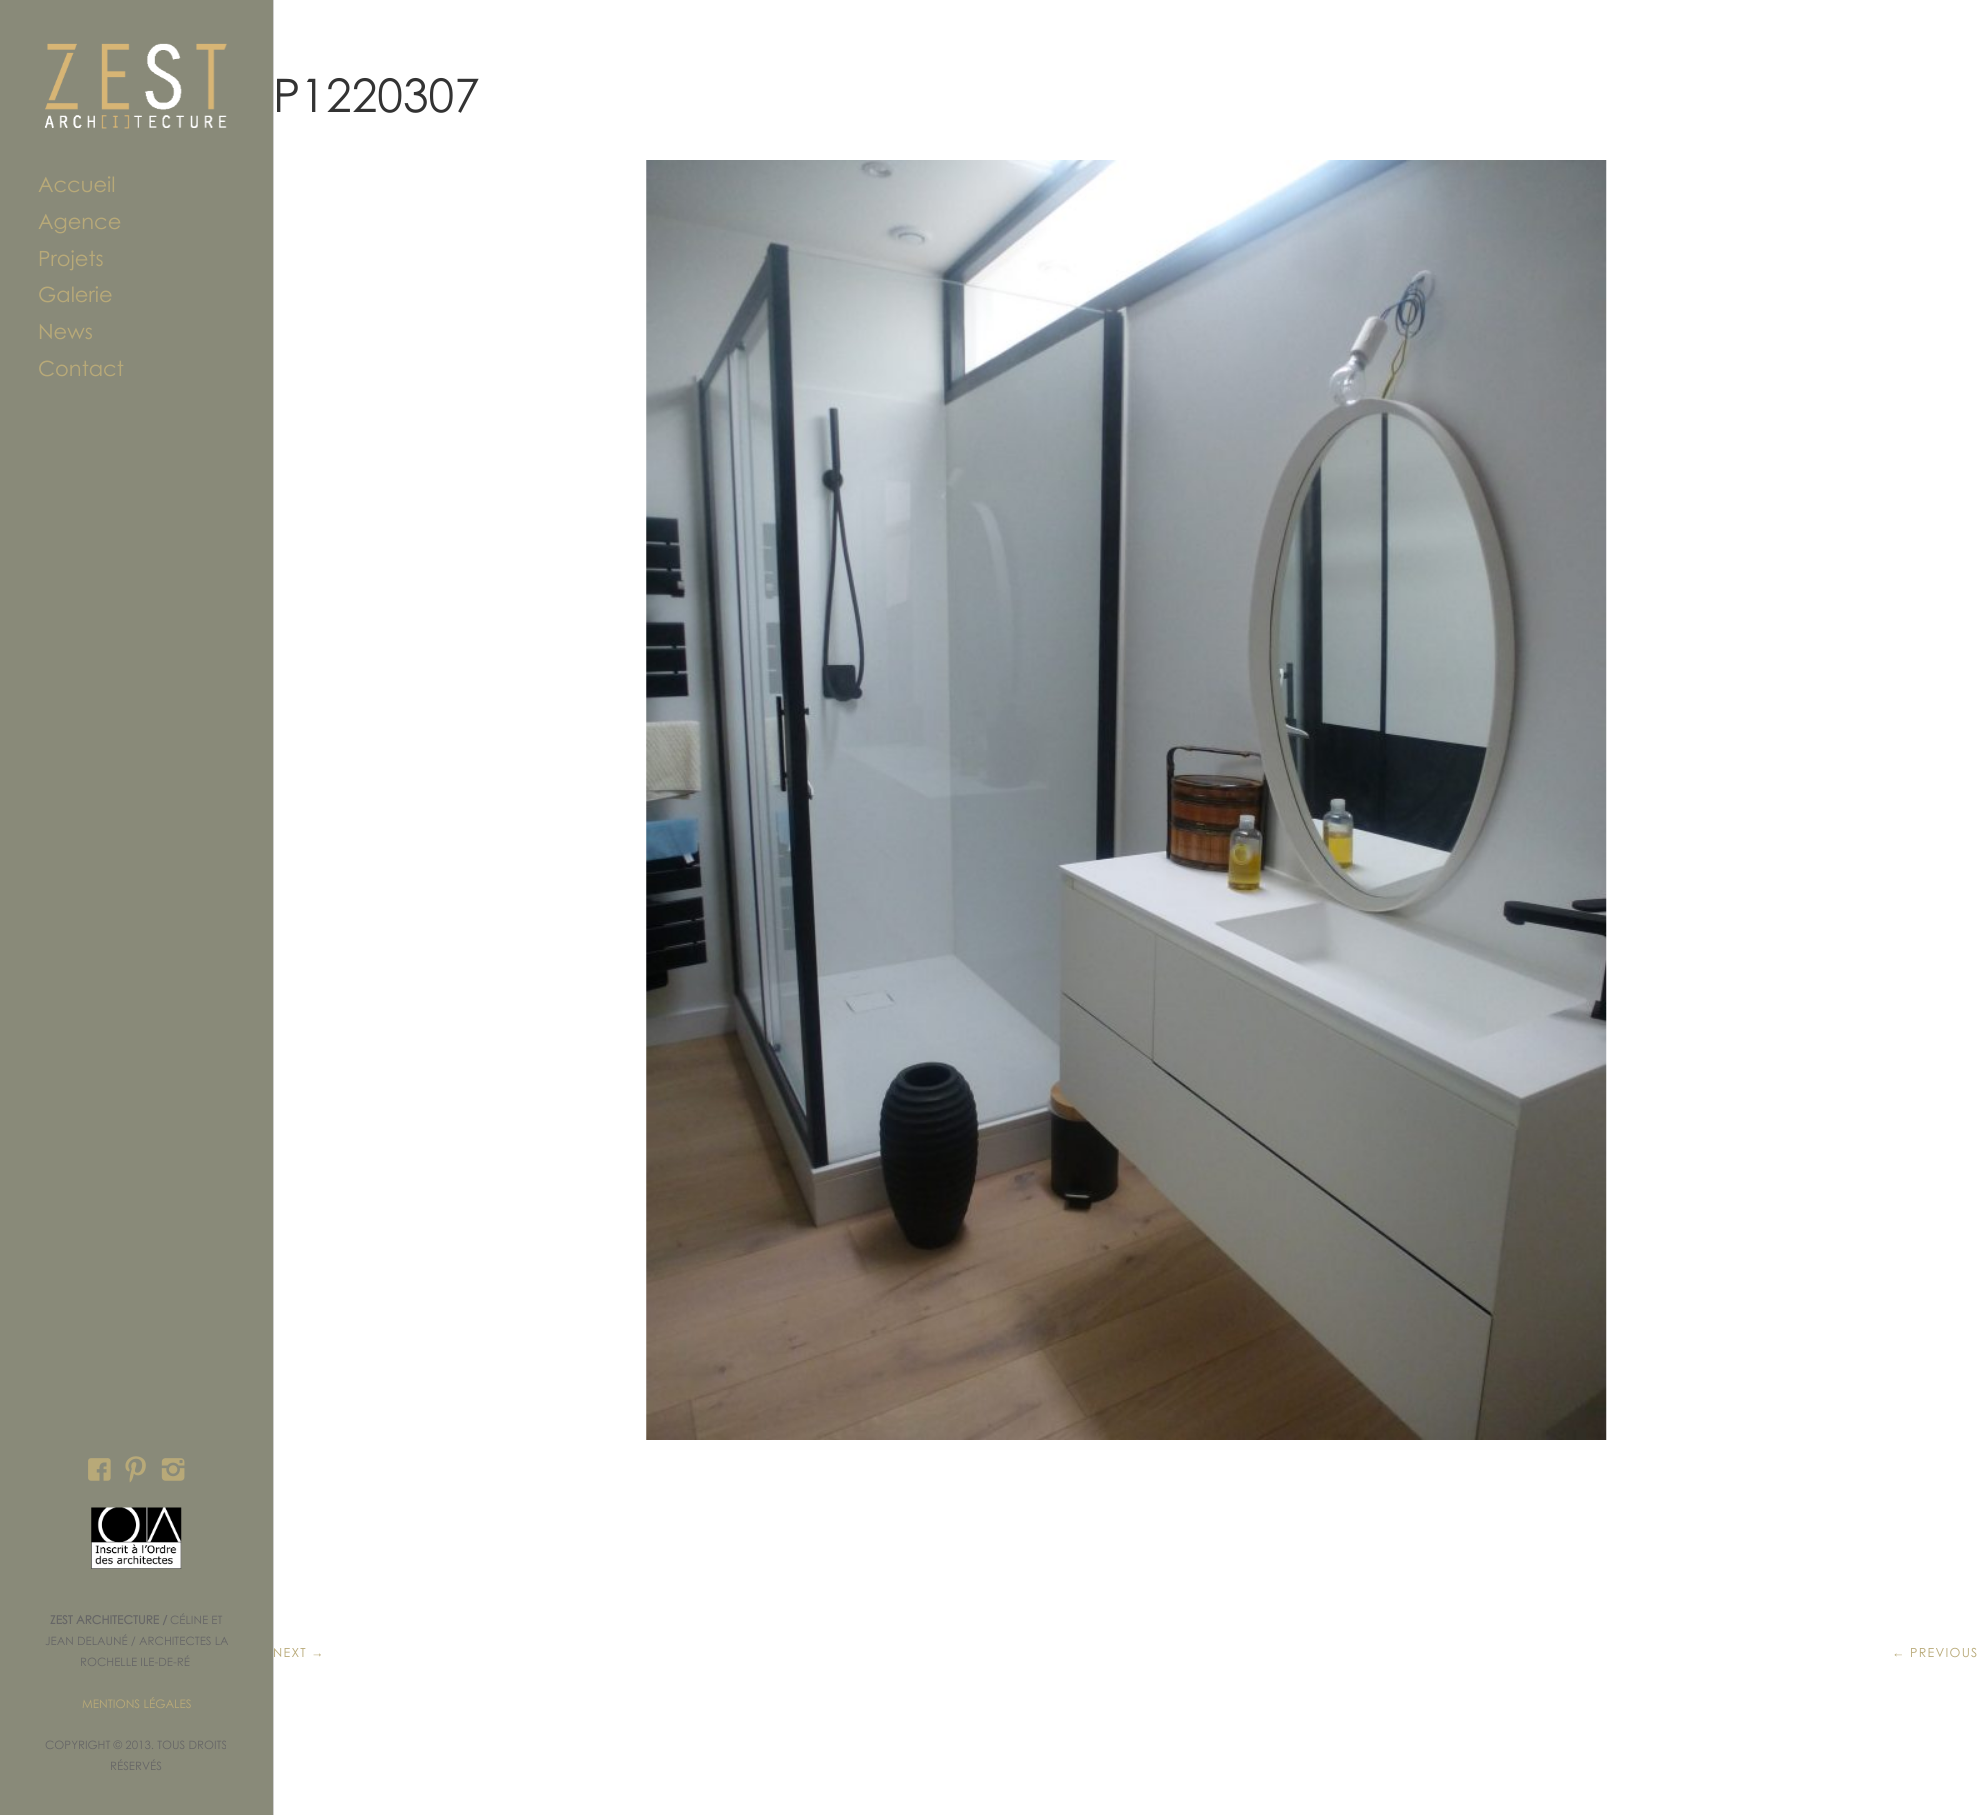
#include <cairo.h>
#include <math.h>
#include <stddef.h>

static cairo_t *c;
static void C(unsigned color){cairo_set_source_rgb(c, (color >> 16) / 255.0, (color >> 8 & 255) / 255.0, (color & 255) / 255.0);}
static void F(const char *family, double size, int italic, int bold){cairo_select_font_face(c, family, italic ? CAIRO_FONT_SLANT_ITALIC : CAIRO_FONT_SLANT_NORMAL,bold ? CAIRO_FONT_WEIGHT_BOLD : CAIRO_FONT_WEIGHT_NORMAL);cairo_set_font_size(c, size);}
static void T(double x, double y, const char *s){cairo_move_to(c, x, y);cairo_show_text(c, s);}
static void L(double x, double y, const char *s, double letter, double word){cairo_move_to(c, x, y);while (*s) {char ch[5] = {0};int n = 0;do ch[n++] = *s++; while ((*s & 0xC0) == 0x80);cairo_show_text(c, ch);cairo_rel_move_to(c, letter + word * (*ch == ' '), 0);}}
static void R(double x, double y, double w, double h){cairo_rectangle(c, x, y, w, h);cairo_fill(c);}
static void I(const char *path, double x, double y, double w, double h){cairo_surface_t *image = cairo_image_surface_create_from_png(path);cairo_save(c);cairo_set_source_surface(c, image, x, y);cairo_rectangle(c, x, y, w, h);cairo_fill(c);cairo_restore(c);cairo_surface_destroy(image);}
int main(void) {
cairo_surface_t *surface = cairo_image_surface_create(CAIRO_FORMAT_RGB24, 1978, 1815);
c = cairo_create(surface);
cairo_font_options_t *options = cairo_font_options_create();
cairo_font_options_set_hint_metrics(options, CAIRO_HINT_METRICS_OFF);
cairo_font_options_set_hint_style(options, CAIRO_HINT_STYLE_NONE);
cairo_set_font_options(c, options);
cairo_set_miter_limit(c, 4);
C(0xffffff);
cairo_paint(c);
C(0x898a79);
R(0,0,273,1815);
F("Century Gothic",12.5,0,0);
C(0xb8a978);
L(273,1657,"NEXT",1.25,0);
C(0xcfcfcf);
R(273,0,1,1815);
I("1.png",44,43,183,86);
F("Century Gothic",21,0,0);
C(0xb8a978);
T(38,192,"Accueil");
T(38,229,"Agence");
T(38,266,"Projets");
T(38,302,"Galerie");
T(38,339,"News");
T(38,376,"Contact");
I("2.png",88,1458,23,23);
I("3.png",125,1456,21,27);
I("4.png",161,1458,24,23);
I("5.png",91,1507,91,62);
F("Century Gothic",11.75,0,1);
C(0x666666);
T(50,1624,"ZEST ARCHITECTURE /");
F("Century Gothic",11.5,0,0);
T(170,1624,"CÉLINE ET");
T(45,1645,"JEAN DELAUNÉ / ARCHITECTES LA");
T(80,1666,"ROCHELLE ILE-DE-RÉ");
F("Century Gothic",11.75,0,0);
C(0xb8a978);
T(82,1708,"MENTIONS LÉGALES");
F("Century Gothic",11.5,0,0);
C(0x666666);
T(45,1749,"COPYRIGHT © 2013. TOUS DROITS");
T(110,1770,"RÉSERVÉS");
F("Century Gothic",46.25,0,0);
C(0x333333);
T(273,112,"P1220307");
I("6.png",646,160,961,1280);
F("Liberation Sans",12.5,0,0);
C(0xb8a978);
L(311,1657,"→",1.25,0);
L(1892,1657,"←",1.25,0);
F("Century Gothic",12.5,0,0);
L(1910,1657,"PREVIOUS",1.25,0);
cairo_surface_write_to_png(surface, "o.png");
cairo_font_options_destroy(options);
cairo_destroy(c);
cairo_surface_destroy(surface);
return 0;
}
